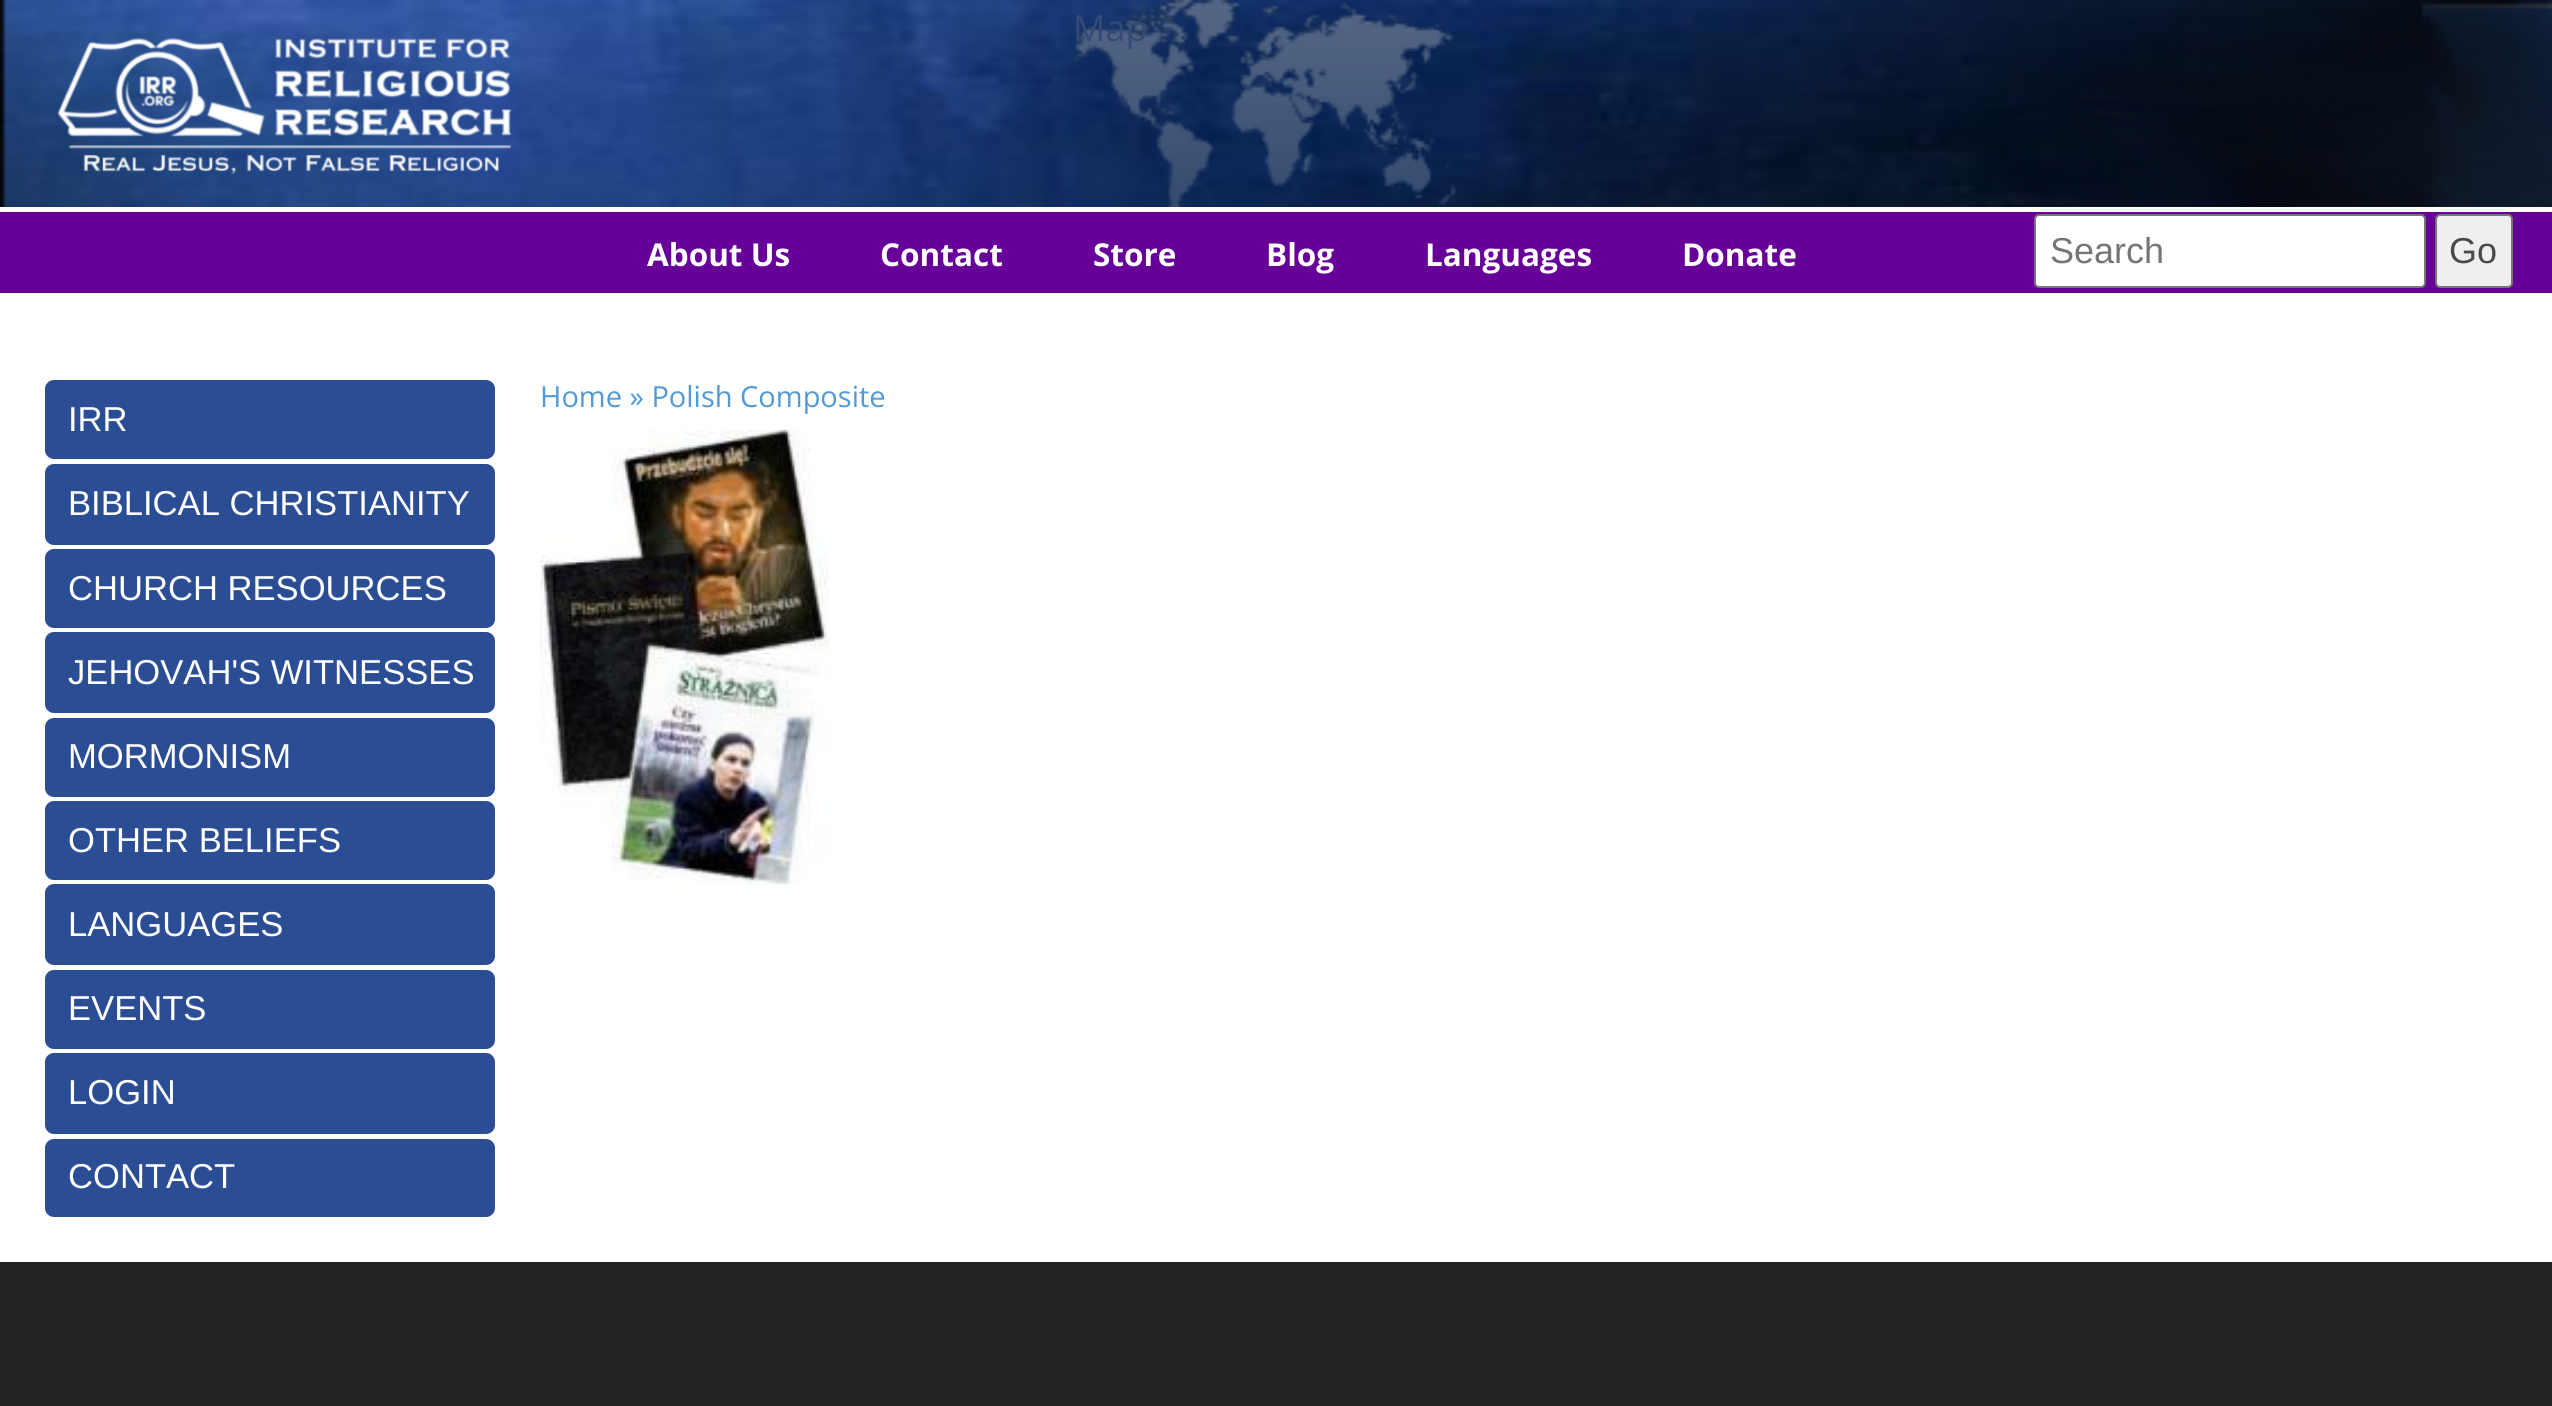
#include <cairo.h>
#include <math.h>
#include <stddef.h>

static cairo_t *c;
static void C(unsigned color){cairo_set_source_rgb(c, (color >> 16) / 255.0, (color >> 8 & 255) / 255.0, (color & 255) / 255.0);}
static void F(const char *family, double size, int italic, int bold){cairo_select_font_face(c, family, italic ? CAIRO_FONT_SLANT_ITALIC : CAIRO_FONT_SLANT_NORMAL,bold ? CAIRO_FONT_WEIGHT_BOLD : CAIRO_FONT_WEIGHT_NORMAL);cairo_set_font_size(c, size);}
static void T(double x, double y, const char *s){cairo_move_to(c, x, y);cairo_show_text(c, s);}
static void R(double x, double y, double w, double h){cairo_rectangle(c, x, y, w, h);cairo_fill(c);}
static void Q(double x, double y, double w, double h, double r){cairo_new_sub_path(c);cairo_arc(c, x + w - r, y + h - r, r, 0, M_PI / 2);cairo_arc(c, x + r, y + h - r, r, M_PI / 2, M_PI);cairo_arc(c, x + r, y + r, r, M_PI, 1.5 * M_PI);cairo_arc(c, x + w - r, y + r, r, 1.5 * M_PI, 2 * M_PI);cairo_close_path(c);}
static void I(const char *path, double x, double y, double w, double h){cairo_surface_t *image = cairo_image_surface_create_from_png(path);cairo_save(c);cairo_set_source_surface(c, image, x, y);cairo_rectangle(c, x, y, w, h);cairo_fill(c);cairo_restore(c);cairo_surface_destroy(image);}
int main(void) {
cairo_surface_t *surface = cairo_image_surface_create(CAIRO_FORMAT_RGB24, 2552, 1406);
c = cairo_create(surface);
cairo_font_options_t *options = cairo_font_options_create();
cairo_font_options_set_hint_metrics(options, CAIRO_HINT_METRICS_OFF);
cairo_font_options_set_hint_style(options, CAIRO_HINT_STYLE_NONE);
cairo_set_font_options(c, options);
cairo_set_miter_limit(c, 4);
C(0xffffff);
cairo_paint(c);
I("1.png",0,0,2552,207);
I("2.png",1073,0,383,207);
F("Open Sans",36,0,0);
C(0x334b76);
T(1073,41,"Map");
I("3.png",57,37,455,138);
C(0x660099);
R(0,212,2552,81);
F("Open Sans",31.5,0,1);
C(0xffffff);
T(647,266,"About Us");
T(880,266,"Contact");
T(1093,266,"Store");
T(1266,266,"Blog");
T(1425,266,"Languages");
T(1682,266,"Donate");
Q(2035,215,390,72,4);
cairo_fill_preserve(c);
C(0x767676);
cairo_stroke(c);
F("Liberation Sans",36,0,0);
C(0x757575);
T(2050,263,"Search");
C(0xefefef);
Q(2436,215,76,72,4);
cairo_fill_preserve(c);
C(0x767676);
cairo_stroke(c);
C(0x494949);
T(2449,263,"Go");
F("Open Sans",29,0,0);
C(0x529ad6);
T(540,407,"Home » Polish Composite");
I("4.png",540,429,289,456);
C(0x2b4d94);
Q(45,380,450,79,9);
cairo_fill(c);
F("Liberation Sans",34.6,0,0);
C(0xffffff);
T(68,431,"IRR");
C(0x2b4d94);
Q(45,464,450,81,9);
cairo_fill(c);
C(0xffffff);
T(68,515,"BIBLICAL CHRISTIANITY");
C(0x2b4d94);
Q(45,549,450,79,9);
cairo_fill(c);
C(0xffffff);
T(68,600,"CHURCH RESOURCES");
C(0x2b4d94);
Q(45,632,450,81,9);
cairo_fill(c);
C(0xffffff);
T(68,684,"JEHOVAH'S WITNESSES");
C(0x2b4d94);
Q(45,718,450,79,9);
cairo_fill(c);
C(0xffffff);
T(68,768,"MORMONISM");
C(0x2b4d94);
Q(45,801,450,79,9);
cairo_fill(c);
C(0xffffff);
T(68,852,"OTHER BELIEFS");
C(0x2b4d94);
Q(45,884,450,81,9);
cairo_fill(c);
C(0xffffff);
T(68,936,"LANGUAGES");
C(0x2b4d94);
Q(45,970,450,79,9);
cairo_fill(c);
C(0xffffff);
T(68,1020,"EVENTS");
C(0x2b4d94);
Q(45,1053,450,81,9);
cairo_fill(c);
C(0xffffff);
T(68,1104,"LOGIN");
C(0x2b4d94);
Q(45,1139,450,78,9);
cairo_fill(c);
C(0xffffff);
T(68,1188,"CONTACT");
C(0x222222);
R(0,1262,2552,144);
cairo_surface_write_to_png(surface, "o.png");
cairo_font_options_destroy(options);
cairo_destroy(c);
cairo_surface_destroy(surface);
return 0;
}
